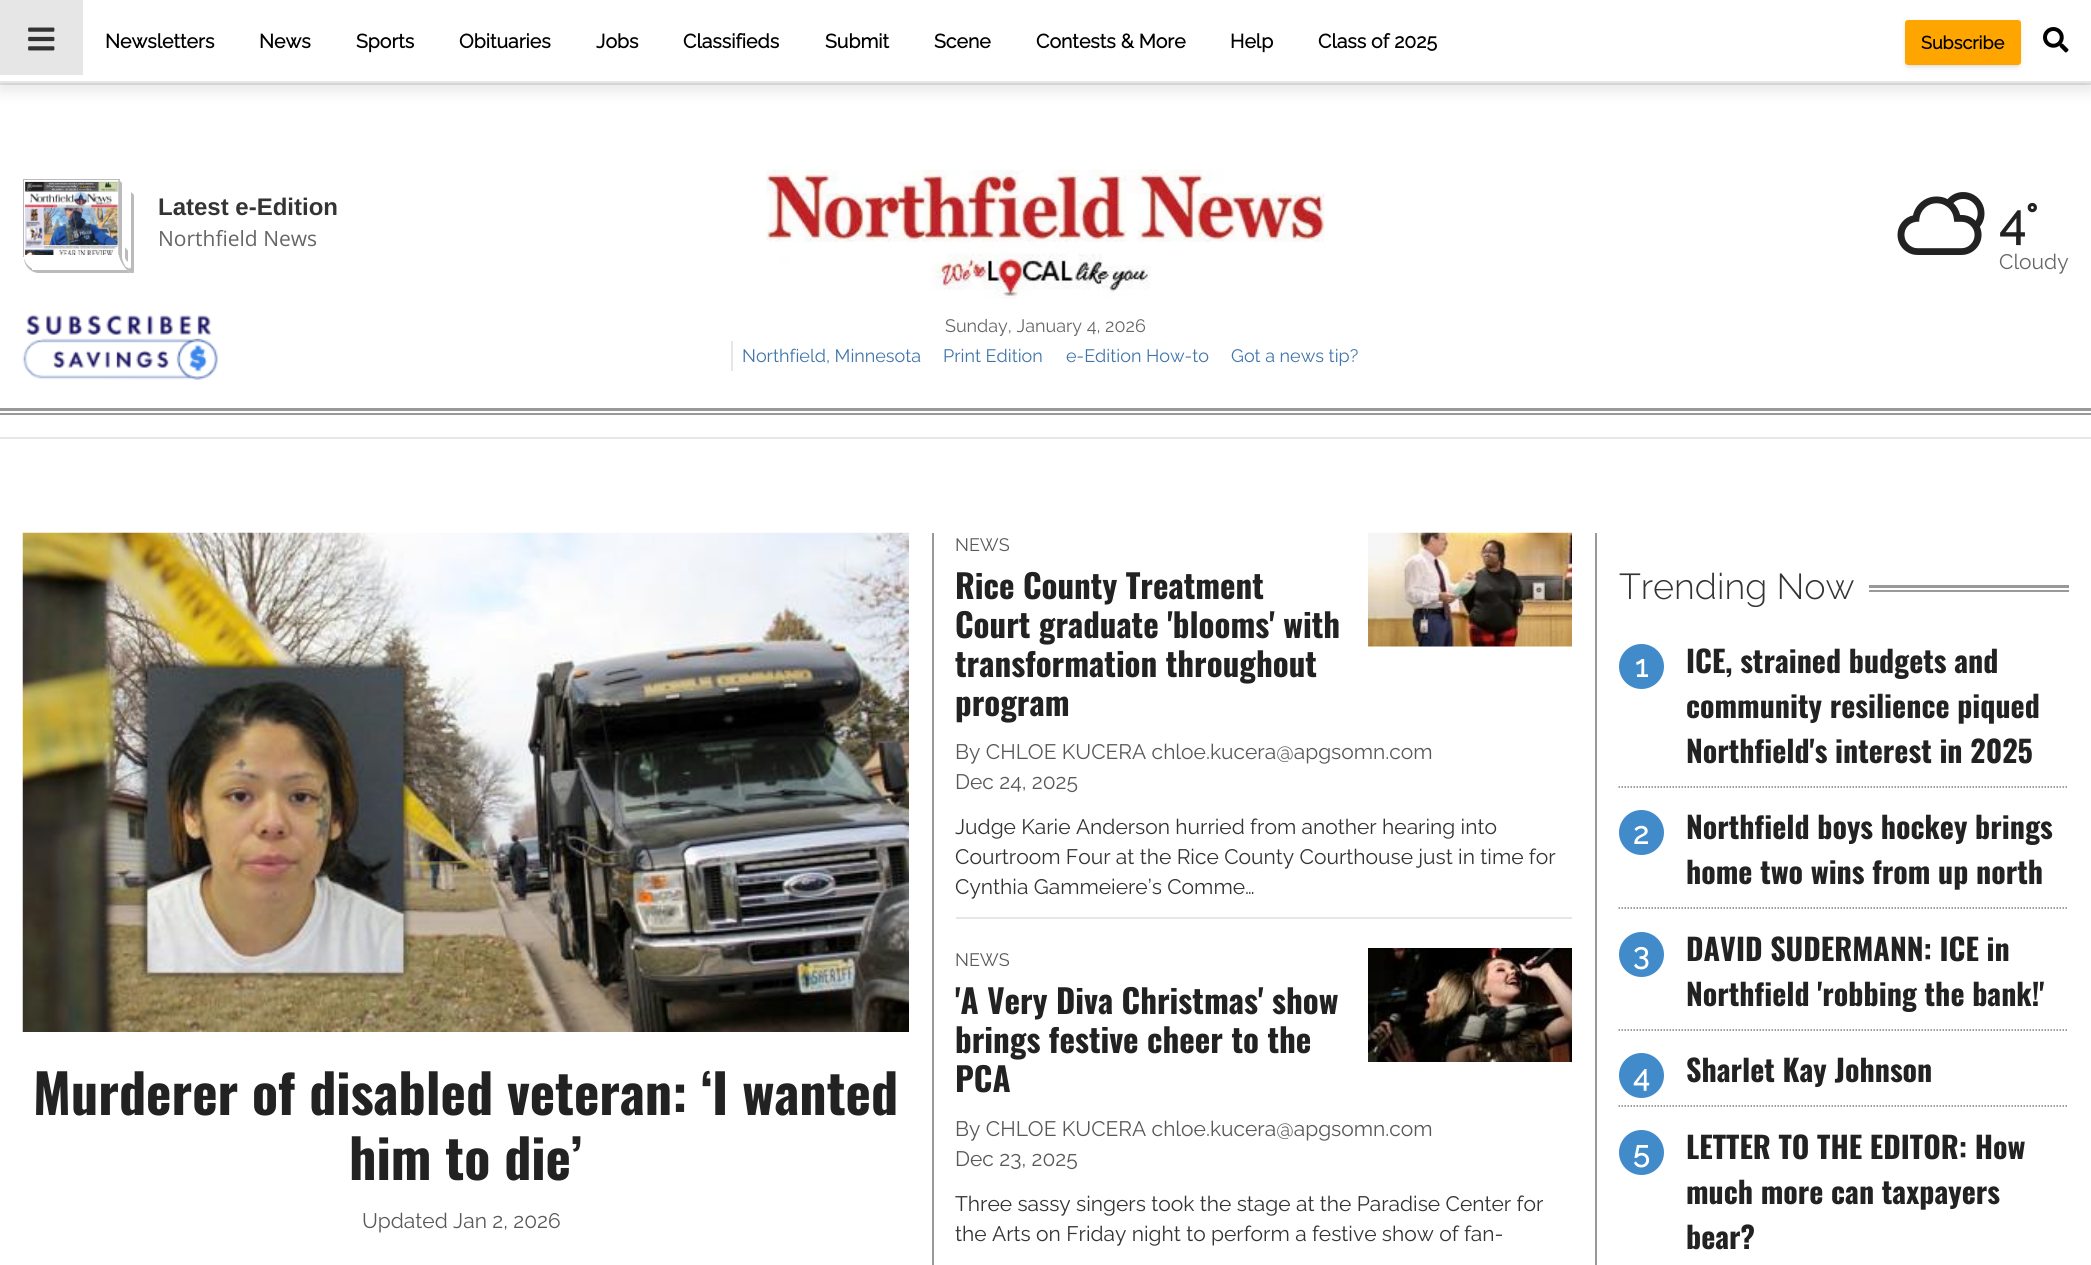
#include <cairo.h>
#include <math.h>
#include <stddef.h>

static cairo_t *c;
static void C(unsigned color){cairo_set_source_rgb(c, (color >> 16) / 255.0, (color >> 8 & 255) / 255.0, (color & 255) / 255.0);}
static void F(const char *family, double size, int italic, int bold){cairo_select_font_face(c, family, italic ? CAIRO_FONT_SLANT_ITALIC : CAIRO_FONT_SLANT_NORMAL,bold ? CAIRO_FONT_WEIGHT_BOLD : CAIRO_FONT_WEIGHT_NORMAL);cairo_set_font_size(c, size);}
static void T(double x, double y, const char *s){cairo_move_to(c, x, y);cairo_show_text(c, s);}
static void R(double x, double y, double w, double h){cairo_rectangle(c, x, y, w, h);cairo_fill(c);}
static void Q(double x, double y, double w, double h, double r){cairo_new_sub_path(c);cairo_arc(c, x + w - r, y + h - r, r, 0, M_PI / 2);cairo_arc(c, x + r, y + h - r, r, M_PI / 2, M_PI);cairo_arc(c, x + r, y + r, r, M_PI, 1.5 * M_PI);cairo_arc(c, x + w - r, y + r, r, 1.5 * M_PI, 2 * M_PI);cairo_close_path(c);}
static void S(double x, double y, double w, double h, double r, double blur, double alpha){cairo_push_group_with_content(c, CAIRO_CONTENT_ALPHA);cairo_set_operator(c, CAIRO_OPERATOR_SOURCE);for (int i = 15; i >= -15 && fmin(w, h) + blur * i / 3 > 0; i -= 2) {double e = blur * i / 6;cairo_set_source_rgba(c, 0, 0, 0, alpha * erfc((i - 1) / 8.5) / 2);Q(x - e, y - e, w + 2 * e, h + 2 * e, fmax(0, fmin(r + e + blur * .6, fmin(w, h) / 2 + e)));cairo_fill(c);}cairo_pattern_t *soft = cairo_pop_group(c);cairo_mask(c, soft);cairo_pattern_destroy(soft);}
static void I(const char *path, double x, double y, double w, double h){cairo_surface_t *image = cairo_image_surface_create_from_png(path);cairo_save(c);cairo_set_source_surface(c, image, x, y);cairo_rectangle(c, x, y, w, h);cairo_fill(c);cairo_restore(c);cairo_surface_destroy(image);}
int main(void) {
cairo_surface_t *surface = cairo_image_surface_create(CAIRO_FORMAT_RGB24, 2091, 1265);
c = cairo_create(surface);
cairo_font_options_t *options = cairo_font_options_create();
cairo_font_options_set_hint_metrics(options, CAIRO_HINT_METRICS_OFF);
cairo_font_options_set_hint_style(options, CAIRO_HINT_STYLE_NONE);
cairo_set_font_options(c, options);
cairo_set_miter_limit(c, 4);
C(0xffffff);
cairo_paint(c);
C(0x000000);
S(0,8,2091,84,0,7.5,.05);
cairo_set_source_rgba(c,0,0,0,0.1);
R(0,83,2091,2);
C(0x000000);
S(0,8,2091,82,0,7.5,.05);
C(0xffffff);
R(0,0,2091,81);
C(0xe6e6e6);
R(0,81,2091,2);
R(0,0,83,75);
I("1.png",28,27,27,24);
F("Raleway",19.5,0,1);
C(0x000000);
T(105,48,"Newsletters");
T(259,48,"News");
T(356,48,"Sports");
T(459,48,"Obituaries");
T(596,48,"Jobs");
T(683,48,"Classifieds");
T(825,48,"Submit");
T(934,48,"Scene");
T(1036,48,"Contests & More");
T(1230,48,"Help");
T(1318,48,"Class of 2025");
C(0x000000);
S(1905,21,116,45,3,4,.05);
S(1908,27,110,39,0,1,.05);
S(1905,23,116,45,3,1.5,.05);
C(0xffa500);
Q(1905,20,116,45,3);
cairo_fill(c);
F("Raleway",18,0,1);
C(0x000000);
T(1921,49,"Subscribe");
I("2.png",2043,27,26,26);
C(0xe6e6e6);
R(0,437,2091,2);
F("Liberation Sans",24,0,1);
C(0x343434);
T(158,215,"Latest e-Edition");
cairo_rectangle(c,24,180,95,76);
C(0xbbbbbb);
cairo_stroke(c);
I("3.png",24,180,95,75);
cairo_new_path(c);
cairo_move_to(c,24,258);
cairo_curve_to(c,24,266,31,273,39,273);
cairo_line_to(c,134,273);
cairo_line_to(c,134,258);
cairo_line_to(c,134,270);
cairo_line_to(c,39,270);
cairo_curve_to(c,32,270,26,265,24,258);
cairo_close_path(c);
cairo_fill(c);
C(0xffffff);
cairo_new_path(c);
cairo_move_to(c,24,255);
cairo_line_to(c,134,255);
cairo_line_to(c,134,270);
cairo_line_to(c,39,270);
cairo_curve_to(c,30.5,270,24,263.5,24,255);
cairo_close_path(c);
cairo_fill(c);
cairo_new_path(c);
cairo_move_to(c,119,180);
cairo_line_to(c,134,195);
cairo_line_to(c,134,271);
cairo_curve_to(c,132,279,119,262,119,255);
cairo_close_path(c);
cairo_fill(c);
C(0xbbbbbb);
cairo_new_path(c);
cairo_move_to(c,122,183);
cairo_line_to(c,122,258);
cairo_curve_to(c,122,260,124,265,126,267);
cairo_curve_to(c,129,269,131,269,131,267);
cairo_line_to(c,131,254);
cairo_line_to(c,122,244);
cairo_close_path(c);
cairo_fill(c);
C(0xffffff);
cairo_new_path(c);
cairo_move_to(c,122,183);
cairo_line_to(c,122,258);
cairo_curve_to(c,122,260,124,265,126,267);
cairo_curve_to(c,129,269,131,269,131,267);
cairo_line_to(c,131,192);
cairo_line_to(c,128,189);
cairo_line_to(c,128,261);
cairo_curve_to(c,128,263,125,259,125,258);
cairo_line_to(c,125,186);
cairo_close_path(c);
cairo_fill(c);
C(0xbbbbbb);
cairo_set_fill_rule(c,CAIRO_FILL_RULE_EVEN_ODD);
cairo_new_path(c);
cairo_move_to(c,119,180);
cairo_line_to(c,134,195);
cairo_line_to(c,134,271);
cairo_curve_to(c,132,279,119,262,119,255);
cairo_close_path(c);
cairo_move_to(c,122,183);
cairo_line_to(c,131,192);
cairo_line_to(c,131,267);
cairo_curve_to(c,131,269,129,269,126,267);
cairo_curve_to(c,124,265,122,260,122,258);
cairo_close_path(c);
cairo_fill(c);
C(0xffffff);
R(32,268,5,2);
F("Open Sans",21,0,0);
C(0x666666);
T(158,246,"Northfield News");
I("4.png",22,314,196,66);
I("5.png",1897,192,88,63);
F("Raleway",48,0,1);
C(0x222222);
T(1999,239,"4°");
F("Raleway",21,0,0);
C(0x666666);
T(1999,269,"Cloudy");
I("6.png",766,169,559,130);
F("Raleway",18,0,0);
T(945,332,"Sunday, January 4, 2026");
C(0xe6e6e6);
R(731,341,2,30);
C(0x4175aa);
T(742,362,"Northfield, Minnesota");
T(943,362,"Print Edition");
T(1066,362,"e-Edition How-to");
T(1231,362,"Got a news tip?");
C(0x999999);
R(0,408,2091,3);
R(0,413,2091,2);
I("7.png",22,532,887,500);
F("Oswald",54,0,1);
C(0x222222);
T(33,1115,"Murderer of disabled veteran: ‘I wanted");
T(349,1180,"him to die’");
F("Raleway",21,0,0);
C(0x595959);
T(362,1228,"Updated Jan 2, 2026");
C(0x999999);
R(1595,533,2,732);
R(932,533,2,732);
C(0xe6e6e6);
R(956,917,616,2);
I("8.png",1368,532,204,115);
F("Raleway",18,0,0);
C(0x595959);
T(955,551,"NEWS");
F("Oswald",33,0,1);
C(0x222222);
T(955,599,"Rice County Treatment");
T(955,638,"Court graduate 'blooms' with");
T(955,677,"transformation throughout");
T(955,716,"program");
F("Raleway",21,0,0);
C(0x595959);
T(955,759,"By CHLOE KUCERA chloe.kucera@apgsomn.com");
T(955,789,"Dec 24, 2025");
C(0x343434);
T(955,834,"Judge Karie Anderson hurried from another hearing into");
T(955,864,"Courtroom Four at the Rice County Courthouse just in time for");
T(955,894,"Cynthia Gammeiere’s Comme…");
I("9.png",1368,948,204,114);
F("Raleway",18,0,0);
C(0x595959);
T(955,966,"NEWS");
F("Oswald",33,0,1);
C(0x222222);
T(955,1014,"'A Very Diva Christmas' show");
T(955,1053,"brings festive cheer to the");
T(955,1092,"PCA");
F("Raleway",21,0,0);
C(0x595959);
T(955,1136,"By CHLOE KUCERA chloe.kucera@apgsomn.com");
T(955,1166,"Dec 23, 2025");
C(0x343434);
T(955,1211,"Three sassy singers took the stage at the Paradise Center for");
T(955,1241,"the Arts on Friday night to perform a festive show of fan-");
F("Raleway Light",36,0,0);
T(1619,599,"Trending Now");
C(0x999999);
R(1869,585,200,3);
R(1869,590,200,2);
cairo_new_path(c);
cairo_move_to(c,1618.5,787);
cairo_line_to(c,2068.5,787);
C(0x808080);
cairo_set_line_width(c,1.5);
cairo_set_dash(c,(double[]){1.5,1.5},2,0);
cairo_stroke(c);
C(0x428bca);
cairo_arc(c,1641.5,666.5,22.5,0,2 * M_PI);
cairo_fill(c);
F("Raleway",30,0,1);
C(0xffffff);
T(1635,677,"1");
F("Oswald",30,0,1);
C(0x222222);
T(1686,673,"ICE, strained budgets and");
T(1686,718,"community resilience piqued");
T(1686,763,"Northfield's interest in 2025");
cairo_new_path(c);
cairo_move_to(c,1618.5,908);
cairo_line_to(c,2068.5,908);
C(0x808080);
cairo_stroke(c);
C(0x428bca);
cairo_arc(c,1641.5,832.5,22.5,0,2 * M_PI);
cairo_fill(c);
F("Raleway",30,0,1);
C(0xffffff);
T(1633,844,"2");
F("Oswald",30,0,1);
C(0x222222);
T(1686,839,"Northfield boys hockey brings");
T(1686,884,"home two wins from up north");
cairo_new_path(c);
cairo_move_to(c,1618.5,1030);
cairo_line_to(c,2068.5,1030);
C(0x808080);
cairo_stroke(c);
C(0x428bca);
cairo_arc(c,1641.5,954.5,22.5,0,2 * M_PI);
cairo_fill(c);
F("Raleway",30,0,1);
C(0xffffff);
T(1633,965,"3");
F("Oswald",30,0,1);
C(0x222222);
T(1686,961,"DAVID SUDERMANN: ICE in");
T(1686,1006,"Northfield 'robbing the bank!'");
cairo_new_path(c);
cairo_move_to(c,1618.5,1106);
cairo_line_to(c,2068.5,1106);
C(0x808080);
cairo_stroke(c);
C(0x428bca);
cairo_arc(c,1641.5,1075.5,22.5,0,2 * M_PI);
cairo_fill(c);
F("Raleway",30,0,1);
C(0xffffff);
T(1633,1087,"4");
F("Oswald",30,0,1);
C(0x222222);
T(1686,1082,"Sharlet Kay Johnson");
C(0x428bca);
cairo_new_path(c);
cairo_arc(c,1641.5,1152.5,22.5,0,2 * M_PI);
cairo_fill(c);
F("Raleway",30,0,1);
C(0xffffff);
T(1633,1163,"5");
F("Oswald",30,0,1);
C(0x222222);
T(1686,1159,"LETTER TO THE EDITOR: How");
T(1686,1204,"much more can taxpayers");
T(1686,1249,"bear?");
cairo_surface_write_to_png(surface, "o.png");
cairo_font_options_destroy(options);
cairo_destroy(c);
cairo_surface_destroy(surface);
return 0;
}
